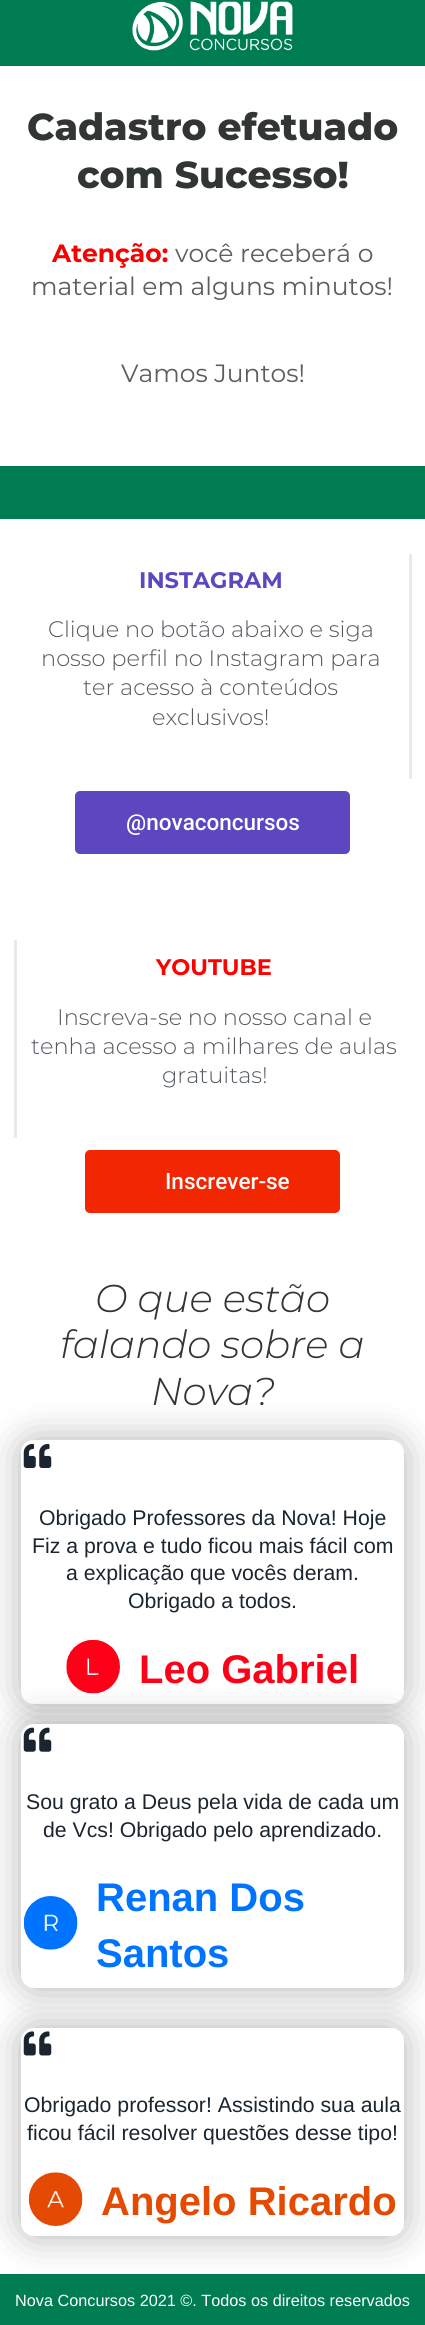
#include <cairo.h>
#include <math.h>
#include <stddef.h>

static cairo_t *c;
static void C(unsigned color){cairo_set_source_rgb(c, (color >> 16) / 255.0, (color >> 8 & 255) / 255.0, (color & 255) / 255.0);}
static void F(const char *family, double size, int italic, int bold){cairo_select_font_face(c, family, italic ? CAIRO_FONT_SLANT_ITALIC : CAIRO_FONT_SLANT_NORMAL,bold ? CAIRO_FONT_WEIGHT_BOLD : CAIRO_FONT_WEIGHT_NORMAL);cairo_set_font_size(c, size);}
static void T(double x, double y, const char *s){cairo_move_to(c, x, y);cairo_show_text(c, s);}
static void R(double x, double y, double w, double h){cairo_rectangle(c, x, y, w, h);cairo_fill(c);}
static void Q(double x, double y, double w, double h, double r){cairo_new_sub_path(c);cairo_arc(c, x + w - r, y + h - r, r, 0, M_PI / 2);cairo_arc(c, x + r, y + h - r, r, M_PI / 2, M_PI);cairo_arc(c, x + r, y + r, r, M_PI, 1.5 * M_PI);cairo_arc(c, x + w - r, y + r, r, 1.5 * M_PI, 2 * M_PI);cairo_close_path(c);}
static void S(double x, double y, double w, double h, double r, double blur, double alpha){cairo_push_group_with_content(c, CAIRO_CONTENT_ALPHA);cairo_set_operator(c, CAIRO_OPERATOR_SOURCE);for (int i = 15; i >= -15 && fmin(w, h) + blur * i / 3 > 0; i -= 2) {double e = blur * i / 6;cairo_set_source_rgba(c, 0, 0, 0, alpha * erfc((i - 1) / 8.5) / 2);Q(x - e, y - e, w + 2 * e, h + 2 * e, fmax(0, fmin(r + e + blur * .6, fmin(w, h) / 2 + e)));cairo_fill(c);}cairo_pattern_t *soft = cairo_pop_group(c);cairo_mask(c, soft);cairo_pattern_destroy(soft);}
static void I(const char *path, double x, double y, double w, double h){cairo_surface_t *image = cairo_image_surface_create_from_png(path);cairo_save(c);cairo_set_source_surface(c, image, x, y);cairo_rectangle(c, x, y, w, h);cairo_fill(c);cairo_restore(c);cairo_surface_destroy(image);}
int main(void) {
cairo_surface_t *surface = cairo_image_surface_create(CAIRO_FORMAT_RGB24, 425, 2325);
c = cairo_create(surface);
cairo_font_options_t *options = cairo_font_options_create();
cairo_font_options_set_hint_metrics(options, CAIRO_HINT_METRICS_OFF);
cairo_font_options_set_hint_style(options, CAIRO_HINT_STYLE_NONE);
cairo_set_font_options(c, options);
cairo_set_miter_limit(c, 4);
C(0xffffff);
cairo_paint(c);
C(0x007c52);
R(0,0,425,66);
I("1.png",132,1,161,50);
F("Montserrat ExtraBold",37.5,0,0);
C(0x313533);
T(27,140,"Cadastro efetuado");
T(77,188,"com Sucesso!");
F("Montserrat",25,0,1);
C(0xf60000);
T(52,262,"Atenção:");
F("Montserrat",25,0,0);
C(0x5d5d5d);
T(175,262,"você receberá o");
T(31,295,"material em alguns minutos!");
T(121,382,"Vamos Juntos!");
C(0x007c52);
R(0,466,425,53);
C(0xeaeaea);
R(409,554,3,225);
F("Montserrat",22.5,0,1);
C(0x5c47c1);
T(139,588,"INSTAGRAM");
F("Montserrat Light",22.5,0,0);
C(0x54595f);
T(48,637,"Clique no botão abaixo e siga");
T(41,666,"nosso perfil no Instagram para");
T(83,695,"ter acesso à conteúdos");
T(152,725,"exclusivos!");
C(0x5c47c1);
Q(75,791,275,63,5);
cairo_fill(c);
F("Roboto Medium",22.5,0,0);
C(0xffffff);
T(126,830,"@novaconcursos");
C(0xeaeaea);
R(14,940,3,198);
F("Montserrat",22.5,0,1);
C(0xff0000);
T(156,975,"YOUTUBE");
F("Montserrat Light",22.5,0,0);
C(0x54595f);
T(57,1025,"Inscreva-se no nosso canal e");
T(31,1054,"tenha acesso a milhares de aulas");
T(162,1083,"gratuitas!");
C(0xf22600);
Q(85,1150,255,63,5);
cairo_fill(c);
F("Roboto Medium",22.5,0,0);
C(0xffffff);
T(165,1189,"Inscrever-se");
F("Montserrat Light",38.75,1,0);
C(0x313533);
T(95,1312,"O que estão");
T(60,1358,"falando sobre a");
T(151,1405,"Nova?");
C(0x000000);
S(21,1440,383,264,13,19,.3);
C(0xffffff);
Q(22.5,1441.5,380,261,11.5);
cairo_fill_preserve(c);
cairo_set_line_width(c,3);
cairo_stroke(c);
I("2.png",23,1443,29,25);
F("Liberation Sans",21.25,0,0);
C(0x1b252f);
T(39,1525,"Obrigado Professores da Nova! Hoje");
T(32,1553,"Fiz a prova e tudo ficou mais fácil com");
T(66,1580,"a explicação que vocês deram.");
T(128,1608,"Obrigado a todos.");
I("3.png",66,1639,54,55);
F("Liberation Sans",40,0,1);
C(0xff0019);
T(139,1683,"Leo Gabriel");
C(0x000000);
S(21,1724,383,264,13,19,.3);
C(0xffffff);
Q(22.5,1725.5,380,261,11.5);
cairo_fill_preserve(c);
cairo_stroke(c);
I("4.png",23,1727,29,25);
F("Liberation Sans",21.25,0,0);
C(0x1b252f);
T(26,1809,"Sou grato a Deus pela vida de cada um");
T(43,1837,"de Vcs! Obrigado pelo aprendizado.");
I("5.png",23,1896,55,54);
F("Liberation Sans",40,0,1);
C(0x0073ff);
T(96,1911,"Renan Dos");
T(96,1967,"Santos");
C(0x000000);
S(21,2028,383,208,13,19,.3);
C(0xffffff);
Q(22.5,2029.5,380,205,11.5);
cairo_fill_preserve(c);
cairo_stroke(c);
I("6.png",23,2031,29,25);
F("Liberation Sans",21.25,0,0);
C(0x1b252f);
T(24,2112,"Obrigado professor! Assistindo sua aula");
T(27,2140,"ficou fácil resolver questões desse tipo!");
I("7.png",28,2172,55,54);
F("Liberation Sans",40,0,1);
C(0xe44a00);
T(101,2215,"Angelo Ricardo");
C(0x007c52);
R(0,2274,425,51);
F("Liberation Sans",16.25,0,0);
C(0xffffff);
T(15,2306,"Nova Concursos 2021 ©. Todos os direitos reservados");
cairo_surface_write_to_png(surface, "o.png");
cairo_font_options_destroy(options);
cairo_destroy(c);
cairo_surface_destroy(surface);
return 0;
}
